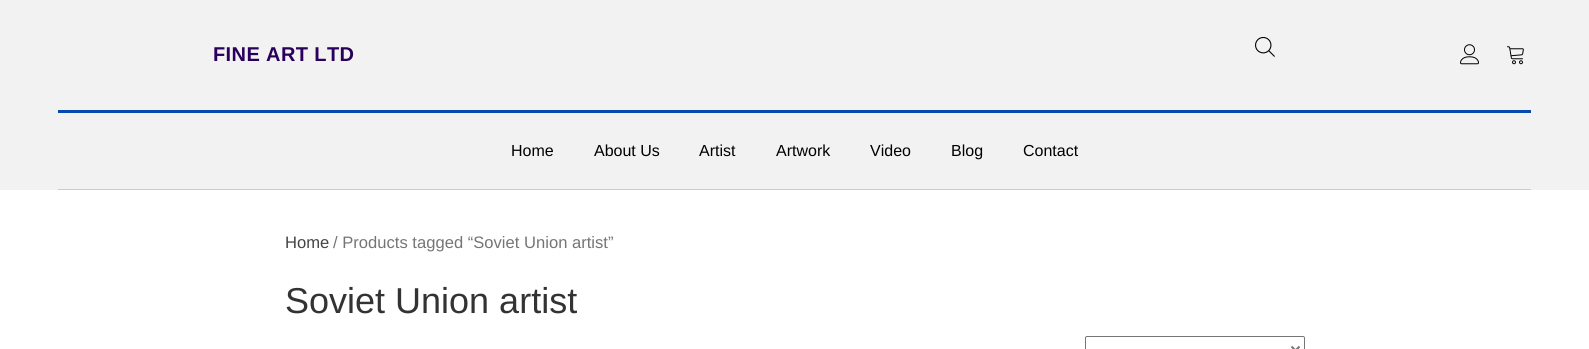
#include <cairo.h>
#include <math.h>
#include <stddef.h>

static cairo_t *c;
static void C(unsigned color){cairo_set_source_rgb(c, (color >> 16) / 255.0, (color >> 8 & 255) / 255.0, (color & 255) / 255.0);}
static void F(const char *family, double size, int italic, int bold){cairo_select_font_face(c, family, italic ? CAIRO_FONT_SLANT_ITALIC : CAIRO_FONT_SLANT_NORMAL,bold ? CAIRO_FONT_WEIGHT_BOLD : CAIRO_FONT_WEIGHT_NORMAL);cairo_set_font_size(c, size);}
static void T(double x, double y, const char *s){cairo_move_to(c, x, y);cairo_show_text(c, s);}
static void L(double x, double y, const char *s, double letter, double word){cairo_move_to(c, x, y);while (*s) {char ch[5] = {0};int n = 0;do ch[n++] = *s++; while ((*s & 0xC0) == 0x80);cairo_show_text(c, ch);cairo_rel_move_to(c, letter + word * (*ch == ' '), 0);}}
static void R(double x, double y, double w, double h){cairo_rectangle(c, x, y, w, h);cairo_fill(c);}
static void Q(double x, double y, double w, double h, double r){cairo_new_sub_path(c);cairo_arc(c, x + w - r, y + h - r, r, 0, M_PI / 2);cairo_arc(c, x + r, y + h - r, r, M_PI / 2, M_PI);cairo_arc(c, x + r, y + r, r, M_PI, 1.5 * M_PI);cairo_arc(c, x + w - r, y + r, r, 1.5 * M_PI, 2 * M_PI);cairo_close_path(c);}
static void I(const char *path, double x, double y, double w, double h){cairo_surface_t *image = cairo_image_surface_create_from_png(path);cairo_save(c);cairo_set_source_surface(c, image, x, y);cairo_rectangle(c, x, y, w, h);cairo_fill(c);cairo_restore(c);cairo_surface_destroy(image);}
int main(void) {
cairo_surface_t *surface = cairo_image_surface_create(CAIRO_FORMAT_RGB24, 1589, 349);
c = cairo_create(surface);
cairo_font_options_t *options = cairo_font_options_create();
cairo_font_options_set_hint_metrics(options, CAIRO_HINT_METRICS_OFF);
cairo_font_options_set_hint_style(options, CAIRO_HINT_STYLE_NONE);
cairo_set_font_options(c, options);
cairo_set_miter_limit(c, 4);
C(0xf2f2f2);
cairo_paint(c);
F("Liberation Sans",20,0,1);
C(0x29005b);
L(213,61,"FINE ART LTD",.4,0);
I("1.png",1255,37,20,20);
I("2.png",1460,44,19,21);
I("3.png",1507,46,17,19);
C(0x074aaf);
R(58,110,1473,3);
F("Liberation Sans",16,0,0);
C(0x000000);
T(511,156,"Home");
T(594,156,"About Us");
T(699,156,"Artist");
T(776,156,"Artwork");
T(870,156,"Video");
T(951,156,"Blog");
T(1023,156,"Contact");
C(0xcccccc);
R(58,189,1473,1);
C(0xffffff);
R(0,190,1589,159);
F("Liberation Sans",16.6,0,0);
C(0x444444);
T(285,248,"Home");
C(0x757575);
T(333,248,"/ Products tagged “Soviet Union artist”");
F("Liberation Sans",36,0,0);
C(0x333333);
T(285,313,"Soviet Union artist");
Q(1085.5,336.5,219,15,1.5);
C(0x767676);
cairo_set_line_width(c,1);
cairo_stroke(c);
cairo_new_path(c);
cairo_move_to(c,1291.5,346.5);
cairo_line_to(c,1295.5,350.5);
cairo_line_to(c,1299.5,346.5);
C(0x757575);
cairo_set_line_width(c,2);
cairo_stroke(c);
cairo_surface_write_to_png(surface, "o.png");
cairo_font_options_destroy(options);
cairo_destroy(c);
cairo_surface_destroy(surface);
return 0;
}
